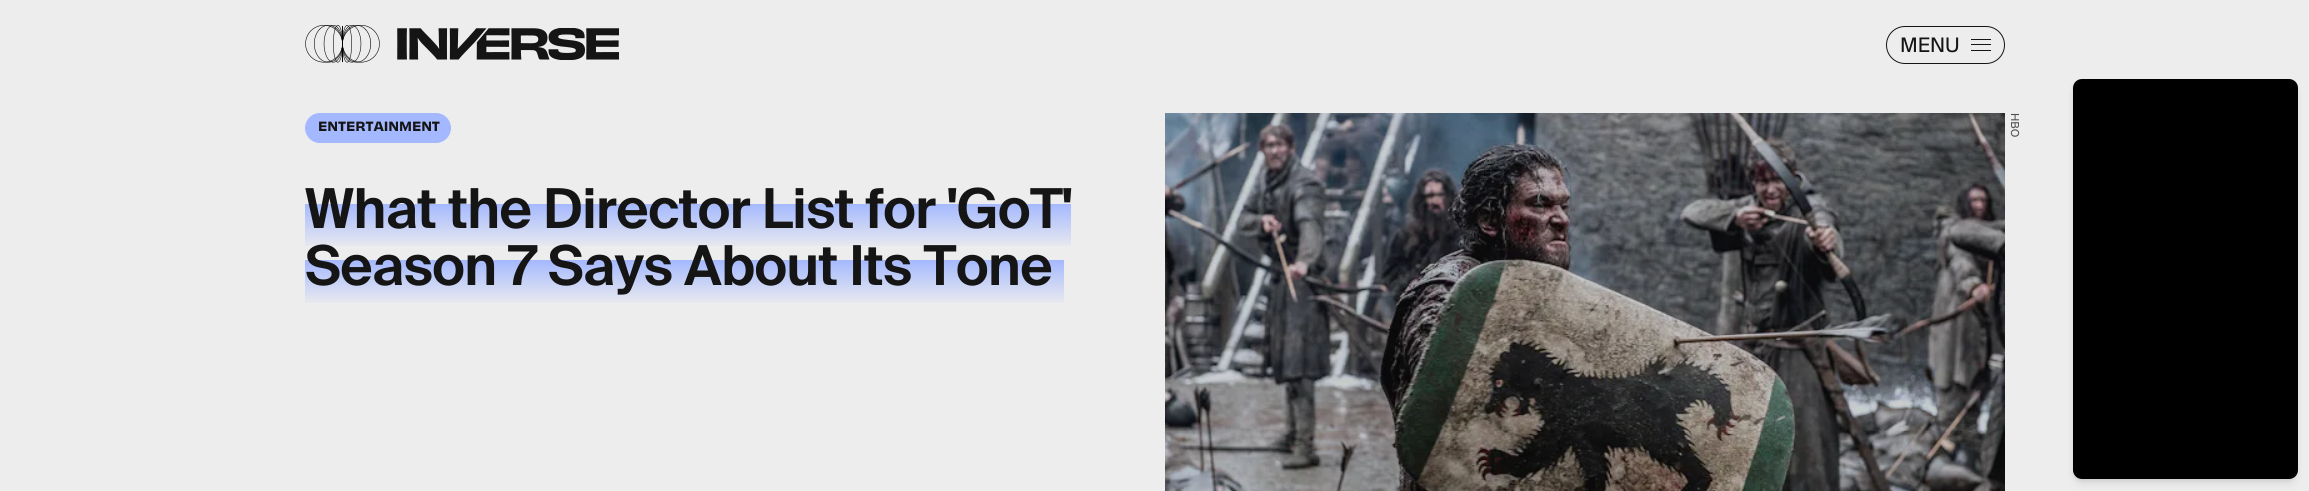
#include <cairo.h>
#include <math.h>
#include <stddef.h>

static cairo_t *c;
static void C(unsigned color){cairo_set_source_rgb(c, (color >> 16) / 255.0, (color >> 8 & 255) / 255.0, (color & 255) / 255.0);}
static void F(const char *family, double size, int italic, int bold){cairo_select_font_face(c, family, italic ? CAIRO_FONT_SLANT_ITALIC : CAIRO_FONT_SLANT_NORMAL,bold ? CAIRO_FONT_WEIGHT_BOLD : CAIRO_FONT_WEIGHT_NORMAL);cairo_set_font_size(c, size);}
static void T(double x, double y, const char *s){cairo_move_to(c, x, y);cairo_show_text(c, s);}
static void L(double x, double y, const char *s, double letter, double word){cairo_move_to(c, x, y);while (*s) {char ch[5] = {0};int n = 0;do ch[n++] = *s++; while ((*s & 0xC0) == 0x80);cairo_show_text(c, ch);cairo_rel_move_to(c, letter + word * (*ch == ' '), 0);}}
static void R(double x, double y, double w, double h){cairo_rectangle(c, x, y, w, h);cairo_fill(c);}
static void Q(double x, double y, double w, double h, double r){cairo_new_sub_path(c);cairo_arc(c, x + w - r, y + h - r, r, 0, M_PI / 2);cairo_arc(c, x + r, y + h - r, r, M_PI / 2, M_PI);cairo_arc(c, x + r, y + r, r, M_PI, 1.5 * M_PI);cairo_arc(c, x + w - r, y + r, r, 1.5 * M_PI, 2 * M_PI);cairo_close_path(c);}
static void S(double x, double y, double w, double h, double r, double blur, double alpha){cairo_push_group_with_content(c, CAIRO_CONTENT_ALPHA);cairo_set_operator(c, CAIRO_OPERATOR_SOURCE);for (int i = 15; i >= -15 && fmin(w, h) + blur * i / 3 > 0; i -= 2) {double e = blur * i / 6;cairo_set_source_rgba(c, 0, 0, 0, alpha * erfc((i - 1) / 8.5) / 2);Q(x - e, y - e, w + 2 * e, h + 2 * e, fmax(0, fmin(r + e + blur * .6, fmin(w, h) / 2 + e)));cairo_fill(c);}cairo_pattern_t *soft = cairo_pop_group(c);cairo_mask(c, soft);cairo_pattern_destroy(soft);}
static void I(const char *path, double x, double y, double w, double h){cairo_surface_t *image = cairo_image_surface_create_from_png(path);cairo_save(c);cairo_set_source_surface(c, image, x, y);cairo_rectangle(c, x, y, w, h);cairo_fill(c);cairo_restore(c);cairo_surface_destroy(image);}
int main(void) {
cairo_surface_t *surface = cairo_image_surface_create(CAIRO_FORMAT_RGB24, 2309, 491);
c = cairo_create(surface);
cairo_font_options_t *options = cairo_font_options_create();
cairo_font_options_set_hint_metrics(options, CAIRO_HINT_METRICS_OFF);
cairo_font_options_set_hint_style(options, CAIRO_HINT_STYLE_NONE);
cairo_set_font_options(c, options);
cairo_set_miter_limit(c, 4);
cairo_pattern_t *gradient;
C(0xededed);
cairo_paint(c);
I("1.png",305,25,75,38);
I("2.png",397,28,223,32);
Q(1886.5,26.5,118,37,18.5);
C(0x151515);
cairo_set_line_width(c,1);
cairo_stroke(c);
F("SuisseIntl",20,0,0);
T(1900,52,"MENU");
R(1971,39,20,1);
R(1971,50,20,1);
R(1971,44,20,1);
C(0xa4b8ff);
Q(305.5,113.5,145,29,14.5);
cairo_fill_preserve(c);
cairo_stroke(c);
F("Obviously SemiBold",12.5,0,0);
C(0x151515);
L(318,131,"ENTERTAINMENT",-.1,0);
I("3.png",1165,113,840,378);
F("SuisseIntl",11,0,0);
C(0x4f4f4f);
cairo_save(c);
cairo_translate(c,2011,113);
cairo_rotate(c,90 * M_PI / 180);
T(0,0,"HBO");
cairo_restore(c);
gradient = cairo_pattern_create_linear(688,175,688,250);
cairo_pattern_add_color_stop_rgba(gradient,0,0.929,0.929,0.929,1);
cairo_pattern_add_color_stop_rgba(gradient,.38,0.929,0.929,0.929,1);
cairo_pattern_add_color_stop_rgba(gradient,.38,0.643,0.722,1,1);
cairo_pattern_add_color_stop_rgba(gradient,1,0.929,0.929,0.929,1);
cairo_set_source(c,gradient);
cairo_pattern_destroy(gradient);
R(305,204,766,42);
F("SuisseIntl SemiBold",55,0,0);
C(0x151515);
L(305,228,"What the Director List for 'GoT'",-.55,0);
gradient = cairo_pattern_create_linear(684,231,684,306);
cairo_pattern_add_color_stop_rgba(gradient,0,0.643,0.722,1,0);
cairo_pattern_add_color_stop_rgba(gradient,.38,0.643,0.722,1,0);
cairo_pattern_add_color_stop_rgba(gradient,.38,0.643,0.722,1,1);
cairo_pattern_add_color_stop_rgba(gradient,1,0.643,0.722,1,0);
cairo_set_source(c,gradient);
cairo_pattern_destroy(gradient);
R(305,260,759,43);
C(0x151515);
L(305,285,"Season 7 Says About Its Tone",-.55,0);
C(0x000000);
S(2075,84,220,395,6,2.5,.1);
S(2074,85,222,398,8,4,.1);
C(0x000000);
Q(2073,79,225,400,9);
cairo_fill(c);
cairo_surface_write_to_png(surface, "o.png");
cairo_font_options_destroy(options);
cairo_destroy(c);
cairo_surface_destroy(surface);
return 0;
}
